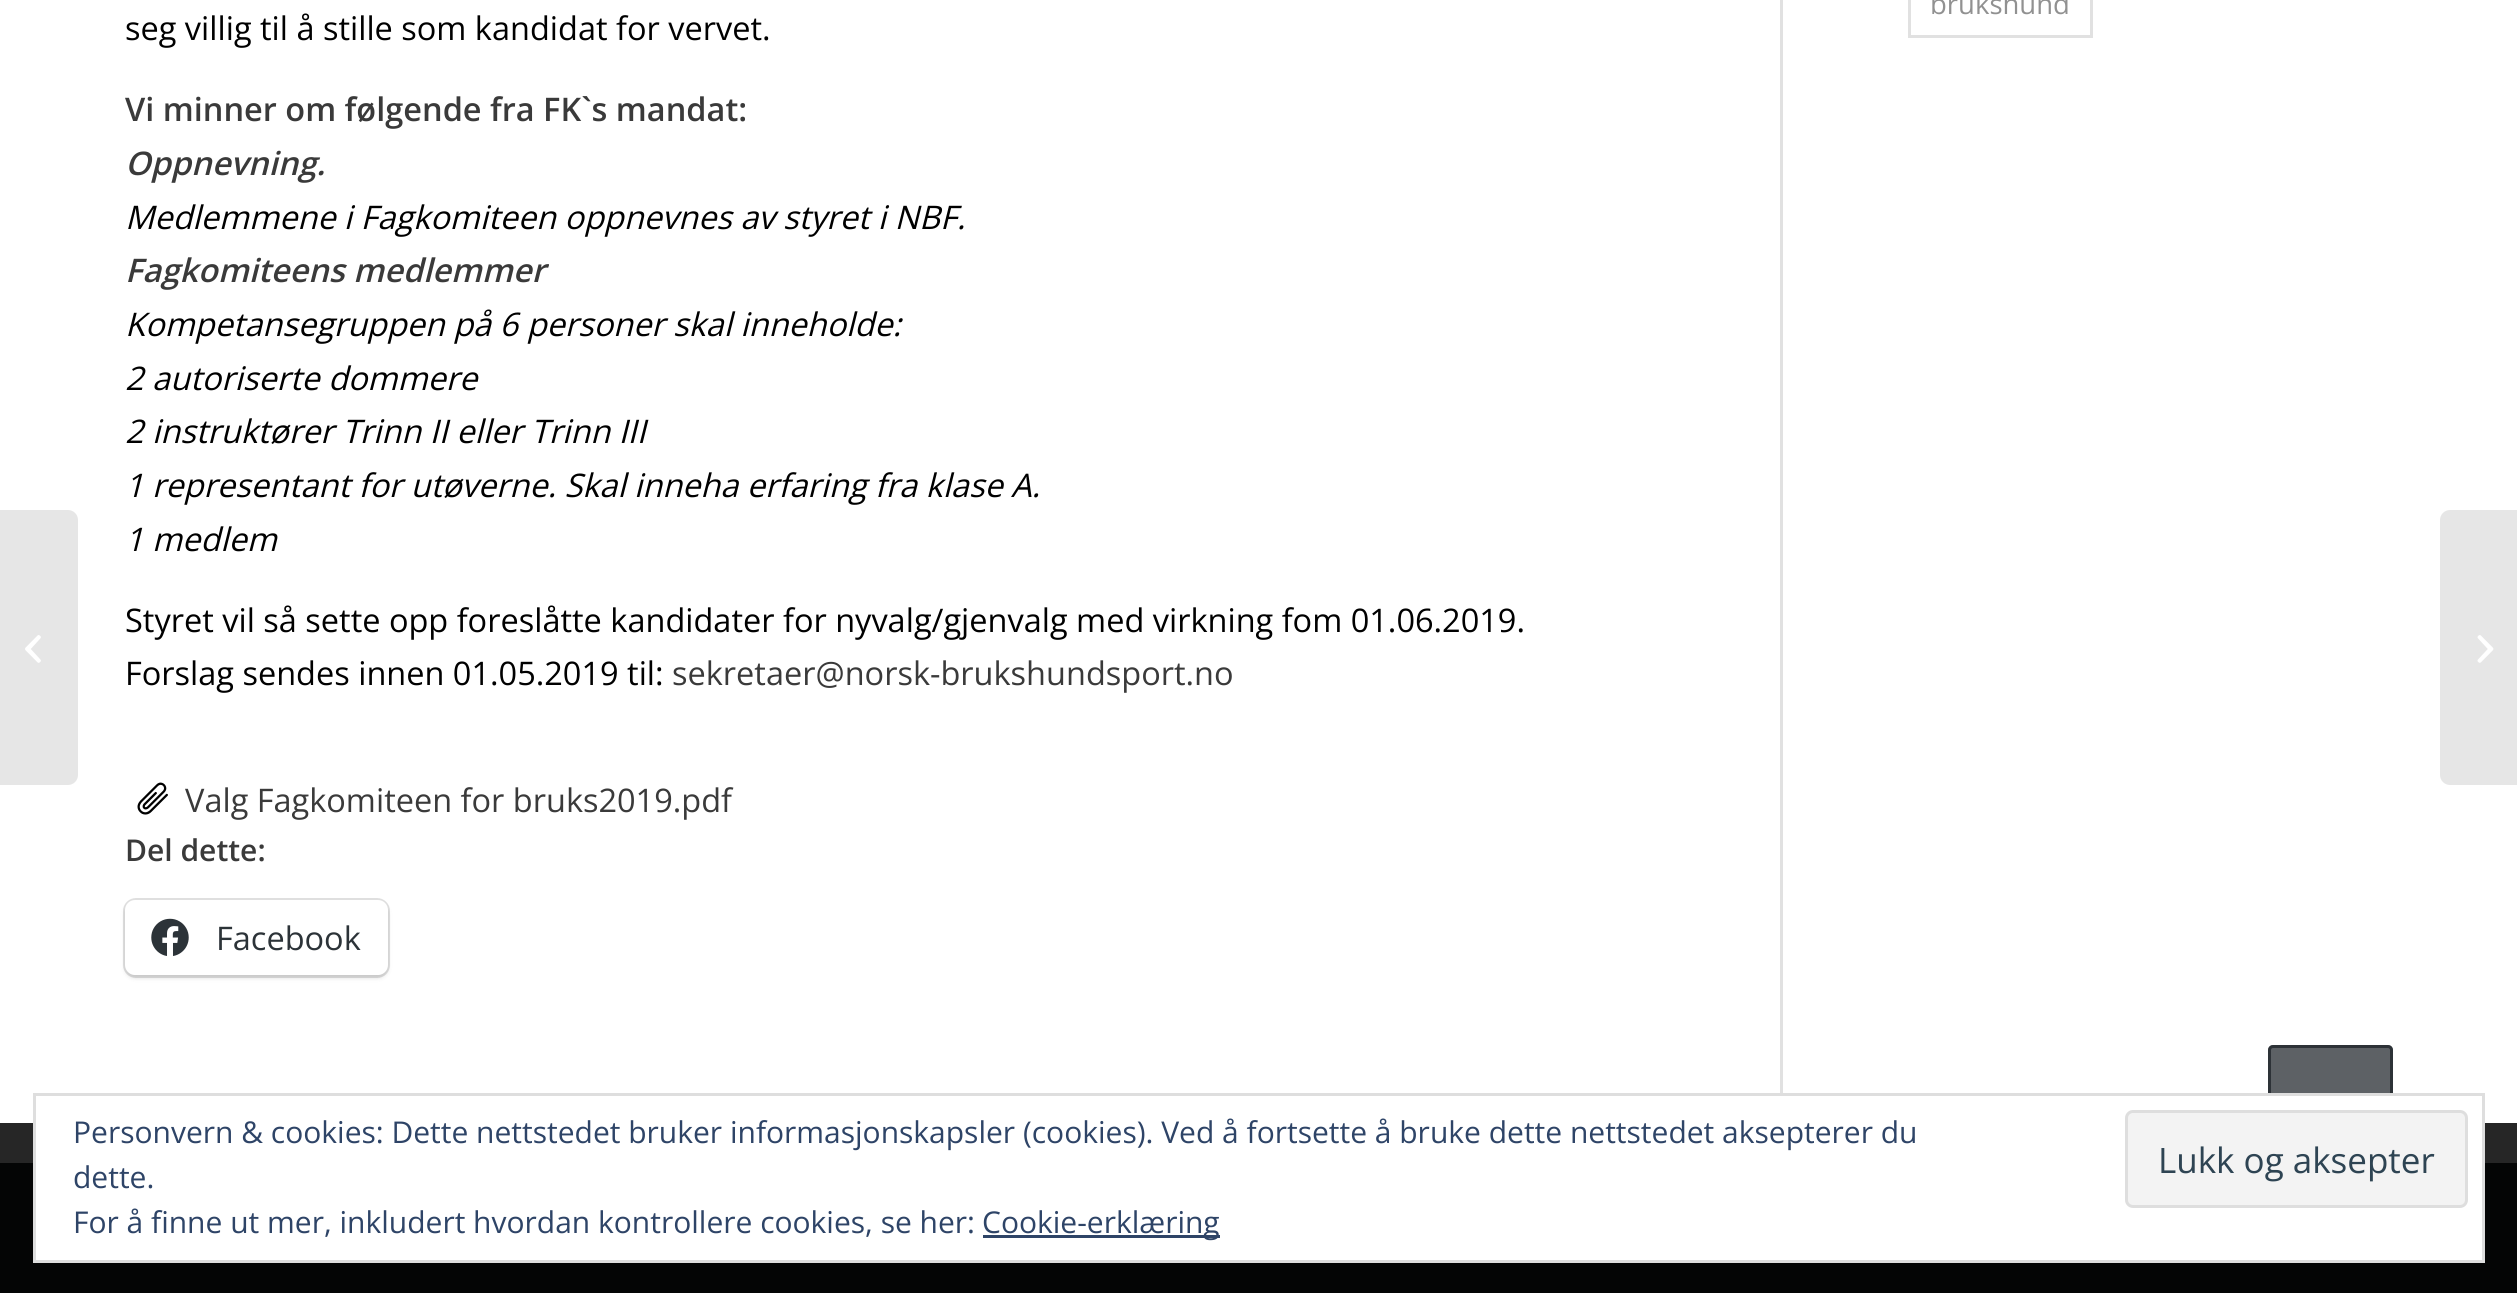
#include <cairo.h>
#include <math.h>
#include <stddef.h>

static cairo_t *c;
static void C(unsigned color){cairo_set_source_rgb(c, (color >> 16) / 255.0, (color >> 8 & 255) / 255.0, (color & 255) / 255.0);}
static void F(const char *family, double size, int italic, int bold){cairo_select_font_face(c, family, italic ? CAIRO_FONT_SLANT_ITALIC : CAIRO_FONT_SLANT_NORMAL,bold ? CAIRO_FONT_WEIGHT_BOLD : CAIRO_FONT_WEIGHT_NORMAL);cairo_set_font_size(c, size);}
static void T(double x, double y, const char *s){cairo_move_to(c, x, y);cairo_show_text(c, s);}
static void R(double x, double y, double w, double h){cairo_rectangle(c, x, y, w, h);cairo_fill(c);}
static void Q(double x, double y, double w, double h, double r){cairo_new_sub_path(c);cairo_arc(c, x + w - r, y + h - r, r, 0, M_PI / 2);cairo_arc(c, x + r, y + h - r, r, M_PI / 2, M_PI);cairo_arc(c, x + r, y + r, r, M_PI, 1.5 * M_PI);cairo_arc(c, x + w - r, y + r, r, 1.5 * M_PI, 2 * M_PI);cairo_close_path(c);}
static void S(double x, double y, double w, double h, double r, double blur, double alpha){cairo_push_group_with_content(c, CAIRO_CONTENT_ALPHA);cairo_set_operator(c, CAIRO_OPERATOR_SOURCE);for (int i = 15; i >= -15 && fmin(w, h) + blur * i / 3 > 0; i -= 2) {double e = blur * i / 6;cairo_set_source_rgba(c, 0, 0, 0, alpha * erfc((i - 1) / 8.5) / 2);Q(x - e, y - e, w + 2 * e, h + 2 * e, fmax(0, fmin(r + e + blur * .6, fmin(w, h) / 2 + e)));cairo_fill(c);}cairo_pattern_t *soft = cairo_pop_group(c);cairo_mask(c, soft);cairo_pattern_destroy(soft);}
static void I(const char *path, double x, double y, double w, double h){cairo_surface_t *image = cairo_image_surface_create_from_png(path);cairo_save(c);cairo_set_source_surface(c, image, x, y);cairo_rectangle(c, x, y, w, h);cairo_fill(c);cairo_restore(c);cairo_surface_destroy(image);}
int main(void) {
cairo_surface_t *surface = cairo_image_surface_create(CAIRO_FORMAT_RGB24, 2517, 1293);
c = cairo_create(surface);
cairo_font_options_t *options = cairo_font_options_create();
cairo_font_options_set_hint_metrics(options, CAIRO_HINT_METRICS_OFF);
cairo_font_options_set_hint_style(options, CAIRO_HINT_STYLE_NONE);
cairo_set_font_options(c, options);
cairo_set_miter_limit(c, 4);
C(0xffffff);
cairo_paint(c);
C(0xe6e6e6);
cairo_new_path(c);
cairo_move_to(c,0,510);
cairo_line_to(c,68,510);
cairo_curve_to(c,73.5,510,78,514.5,78,520);
cairo_line_to(c,78,775);
cairo_curve_to(c,78,780.5,73.5,785,68,785);
cairo_line_to(c,0,785);
cairo_close_path(c);
cairo_fill(c);
I("1.png",25,635,16,28);
C(0x262626);
R(0,1123,2517,40);
cairo_rectangle(c,1909.5,-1.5,182,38);
C(0xe1e1e1);
cairo_set_line_width(c,3);
cairo_stroke(c);
F("Open Sans",27.5,0,0);
C(0x919191);
T(1930,14,"brukshund");
C(0xe1e1e1);
R(1780,0,3,1093);
F("Open Sans",32.5,0,0);
C(0x000000);
T(125,40,"seg villig til å stille som kandidat for vervet.");
F("Open Sans SemiBold",32.5,0,0);
C(0x3a3a3a);
T(125,121,"Vi minner om følgende fra FK`s mandat:");
F("Open Sans SemiBold",32.5,1,0);
T(125,175,"Oppnevning.");
F("Open Sans",32.5,1,0);
C(0x000000);
T(125,229,"Medlemmene i Fagkomiteen oppnevnes av styret i NBF.");
F("Open Sans SemiBold",32.5,1,0);
C(0x3a3a3a);
T(125,282,"Fagkomiteens medlemmer");
F("Open Sans",32.5,1,0);
C(0x000000);
T(125,336,"Kompetansegruppen på 6 personer skal inneholde:");
T(125,390,"2 autoriserte dommere");
T(125,443,"2 instruktører Trinn II eller Trinn III");
T(125,497,"1 representant for utøverne. Skal inneha erfaring fra klase A.");
T(125,551,"1 medlem");
F("Open Sans",32.5,0,0);
T(125,632,"Styret vil så sette opp foreslåtte kandidater for nyvalg/gjenvalg med virkning fom 01.06.2019.");
T(125,685,"Forslag sendes innen 01.05.2019 til:");
C(0x3a3a3a);
T(672,685,"sekretaer@norsk-brukshundsport.no");
I("2.png",137,782,31,33);
T(185,812,"Valg Fagkomiteen for bruks2019.pdf");
F("Open Sans SemiBold",30,0,0);
T(125,861,"Del dette:");
Q(124.5,899.5,264,77,11.5);
C(0xe0e0e0);
cairo_stroke(c);
C(0x000000);
S(125,903,263,75,10,2.5,.12);
C(0xffffff);
Q(125,900,263,75,10);
cairo_fill(c);
I("3.png",151,918,38,38);
F("Open Sans",32.5,0,0);
C(0x2c3338);
T(216,950,"Facebook");
C(0x040505);
R(0,1163,2517,130);
C(0xe6e6e6);
cairo_new_path(c);
cairo_move_to(c,2450,510);
cairo_line_to(c,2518,510);
cairo_line_to(c,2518,785);
cairo_line_to(c,2450,785);
cairo_curve_to(c,2444.5,785,2440,780.5,2440,775);
cairo_line_to(c,2440,520);
cairo_curve_to(c,2440,514.5,2444.5,510,2450,510);
cairo_close_path(c);
cairo_fill(c);
I("4.png",2477,635,17,28);
cairo_set_source_rgba(c,0.098,0.118,0.141,0.7);
Q(2268,1045,125,125,5);
cairo_fill(c);
Q(2269.5,1046.5,122,122,3.5);
cairo_stroke(c);
C(0xffffff);
cairo_rectangle(c,34.5,1094.5,2449,167);
cairo_fill_preserve(c);
C(0xdedede);
cairo_stroke(c);
F("Open Sans",30,0,0);
C(0x2e4467);
T(73,1143,"Personvern & cookies: Dette nettstedet bruker informasjonskapsler (cookies). Ved å fortsette å bruke dette nettstedet aksepterer du");
T(73,1188,"dette.");
C(0xf3f3f3);
Q(2126.5,1111.5,340,95,6.5);
cairo_fill_preserve(c);
C(0xdedede);
cairo_stroke(c);
F("Open Sans",35,0,0);
C(0x2e4453);
T(2158,1173,"Lukk og aksepter");
F("Open Sans",30,0,0);
C(0x2e4467);
T(73,1233,"For å finne ut mer, inkludert hvordan kontrollere cookies, se her:");
R(983,1235,237,3);
T(982,1233,"Cookie-erklæring");
cairo_surface_write_to_png(surface, "o.png");
cairo_font_options_destroy(options);
cairo_destroy(c);
cairo_surface_destroy(surface);
return 0;
}
